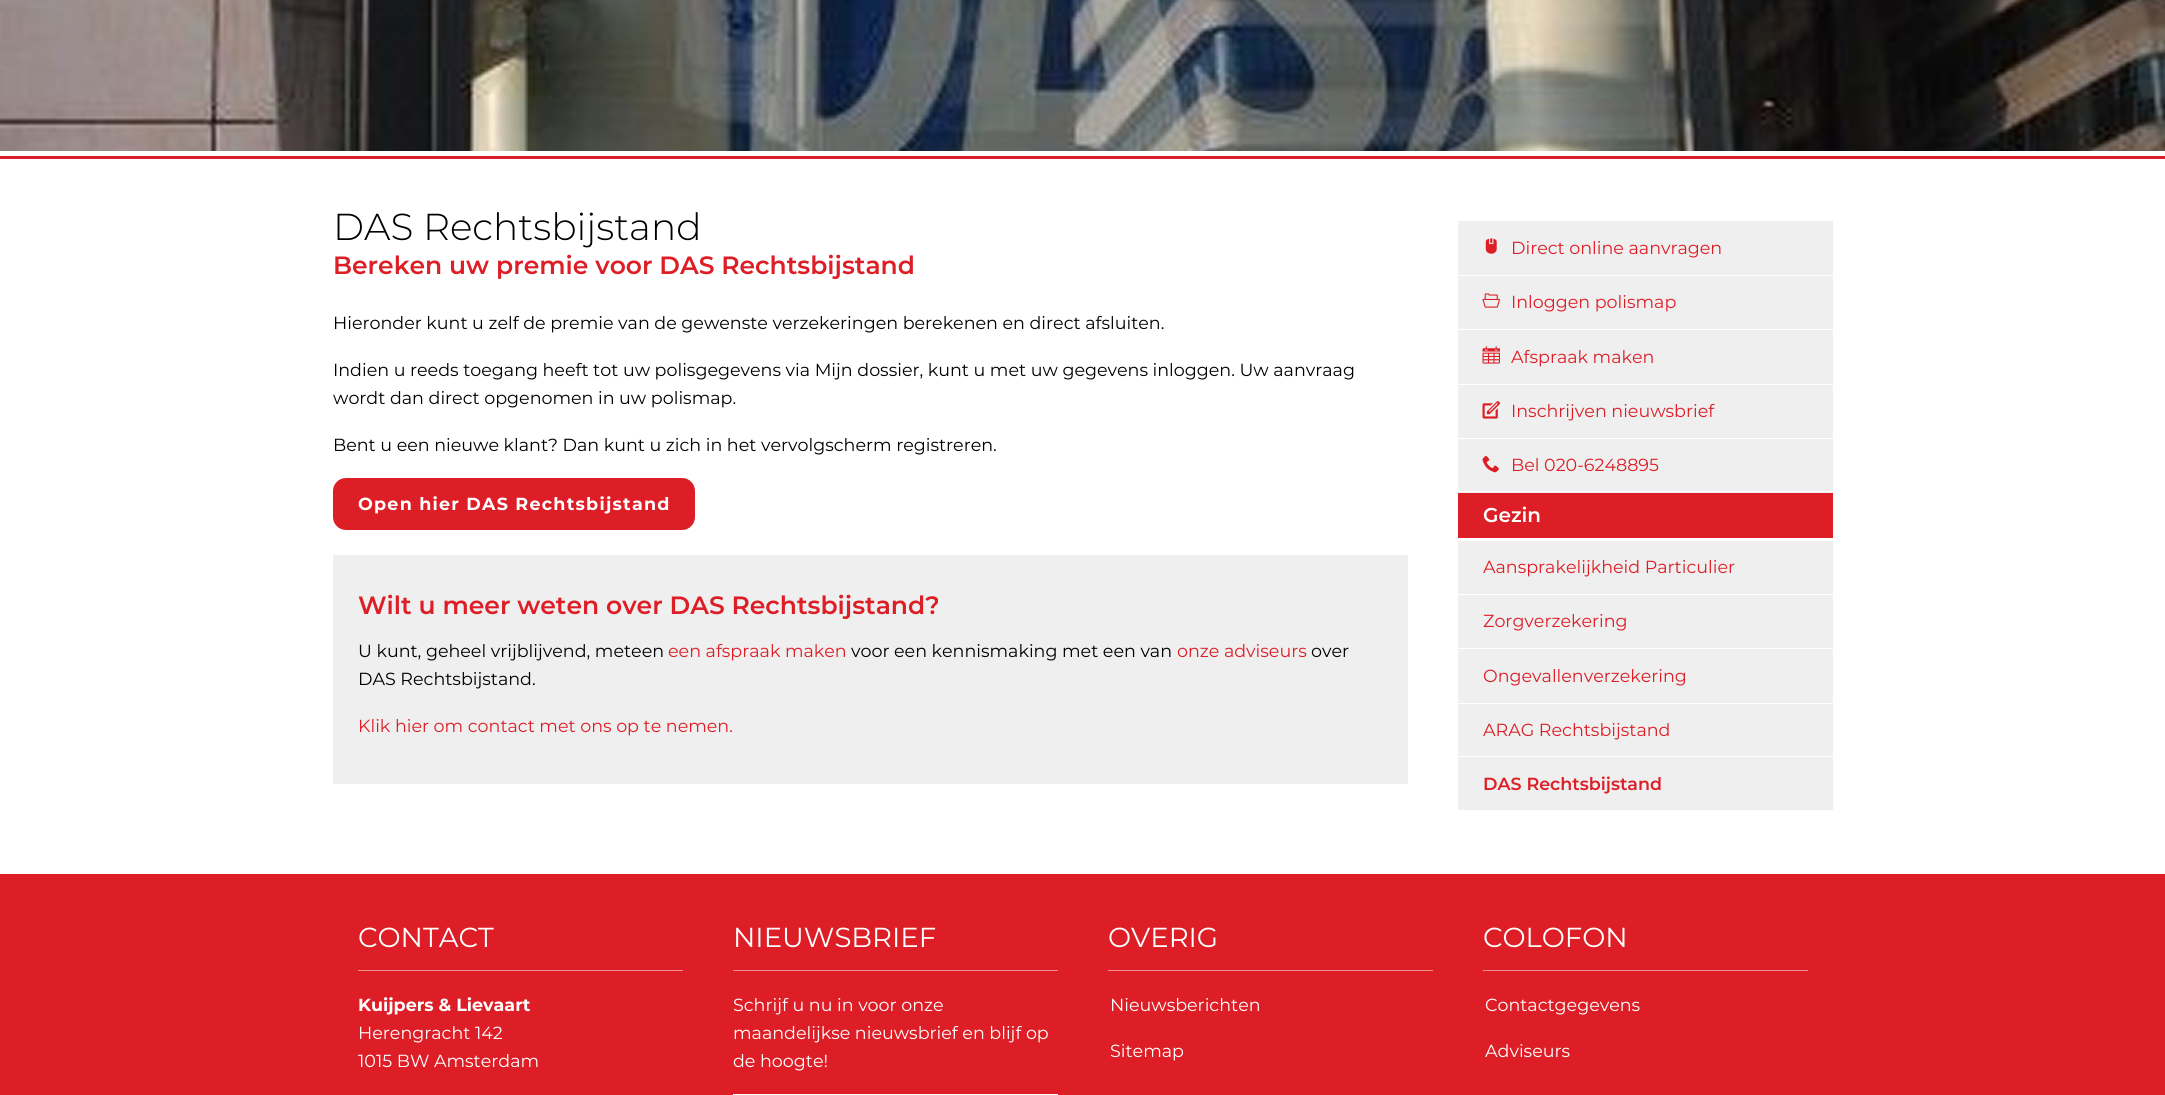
#include <cairo.h>
#include <math.h>
#include <stddef.h>

static cairo_t *c;
static void C(unsigned color){cairo_set_source_rgb(c, (color >> 16) / 255.0, (color >> 8 & 255) / 255.0, (color & 255) / 255.0);}
static void F(const char *family, double size, int italic, int bold){cairo_select_font_face(c, family, italic ? CAIRO_FONT_SLANT_ITALIC : CAIRO_FONT_SLANT_NORMAL,bold ? CAIRO_FONT_WEIGHT_BOLD : CAIRO_FONT_WEIGHT_NORMAL);cairo_set_font_size(c, size);}
static void T(double x, double y, const char *s){cairo_move_to(c, x, y);cairo_show_text(c, s);}
static void L(double x, double y, const char *s, double letter, double word){cairo_move_to(c, x, y);while (*s) {char ch[5] = {0};int n = 0;do ch[n++] = *s++; while ((*s & 0xC0) == 0x80);cairo_show_text(c, ch);cairo_rel_move_to(c, letter + word * (*ch == ' '), 0);}}
static void R(double x, double y, double w, double h){cairo_rectangle(c, x, y, w, h);cairo_fill(c);}
static void Q(double x, double y, double w, double h, double r){cairo_new_sub_path(c);cairo_arc(c, x + w - r, y + h - r, r, 0, M_PI / 2);cairo_arc(c, x + r, y + h - r, r, M_PI / 2, M_PI);cairo_arc(c, x + r, y + r, r, M_PI, 1.5 * M_PI);cairo_arc(c, x + w - r, y + r, r, 1.5 * M_PI, 2 * M_PI);cairo_close_path(c);}
static void I(const char *path, double x, double y, double w, double h){cairo_surface_t *image = cairo_image_surface_create_from_png(path);cairo_save(c);cairo_set_source_surface(c, image, x, y);cairo_rectangle(c, x, y, w, h);cairo_fill(c);cairo_restore(c);cairo_surface_destroy(image);}
int main(void) {
cairo_surface_t *surface = cairo_image_surface_create(CAIRO_FORMAT_RGB24, 2165, 1095);
c = cairo_create(surface);
cairo_font_options_t *options = cairo_font_options_create();
cairo_font_options_set_hint_metrics(options, CAIRO_HINT_METRICS_OFF);
cairo_font_options_set_hint_style(options, CAIRO_HINT_STYLE_NONE);
cairo_set_font_options(c, options);
cairo_set_miter_limit(c, 4);
C(0xffffff);
cairo_paint(c);
I("1.png",0,0,2165,151);
C(0xdd1e26);
R(0,156,2165,3);
F("Montserrat Light",37.5,0,0);
C(0x000000);
T(333,240,"DAS Rechtsbijstand");
F("Montserrat SemiBold",25,0,0);
C(0xdd1e26);
T(333,274,"Bereken uw premie voor DAS Rechtsbijstand");
F("Montserrat",17.5,0,0);
C(0x000000);
T(333,329,"Hieronder kunt u zelf de premie van de gewenste verzekeringen berekenen en direct afsluiten.");
T(333,376,"Indien u reeds toegang heeft tot uw polisgegevens via Mijn dossier, kunt u met uw gegevens inloggen. Uw aanvraag");
T(333,404,"wordt dan direct opgenomen in uw polismap.");
T(333,451,"Bent u een nieuwe klant? Dan kunt u zich in het vervolgscherm registreren.");
C(0xdd1e26);
Q(333,478,362,52,13);
cairo_fill(c);
F("Montserrat",17.5,0,1);
C(0xffffff);
L(358,510,"Open hier DAS Rechtsbijstand",1.25,0);
C(0xefefef);
R(333,555,1075,229);
F("Montserrat SemiBold",25,0,0);
C(0xdd1e26);
T(358,614,"Wilt u meer weten over DAS Rechtsbijstand?");
F("Montserrat",17.5,0,0);
C(0x000000);
T(358,657,"U kunt, geheel vrijblijvend, meteen");
C(0xdd1e26);
T(668,657,"een afspraak maken");
C(0x000000);
T(851,657,"voor een kennismaking met een van");
C(0xdd1e26);
T(1177,657,"onze adviseurs");
C(0x000000);
T(1311,657,"over");
T(358,685,"DAS Rechtsbijstand.");
C(0xdd1e26);
T(358,732,"Klik hier om contact met ons op te nemen.");
C(0xefefef);
R(1458,221,375,589);
C(0xffffff);
R(1458,275,375,1);
I("2.png",1485,238,12,16);
C(0xdd1e26);
T(1511,254,"Direct online aanvragen");
C(0xffffff);
R(1458,329,375,1);
I("3.png",1482,293,18,15);
C(0xdd1e26);
T(1511,308,"Inloggen polismap");
C(0xffffff);
R(1458,384,375,1);
I("4.png",1482,346,18,18);
C(0xdd1e26);
T(1511,363,"Afspraak maken");
C(0xffffff);
R(1458,438,375,1);
I("5.png",1482,401,18,18);
C(0xdd1e26);
T(1511,417,"Inschrijven nieuwsbrief");
C(0xffffff);
R(1458,491,375,1);
I("6.png",1482,456,17,17);
C(0xdd1e26);
T(1511,471,"Bel 020-6248895");
R(1458,493,375,45);
C(0xffffff);
R(1458,538,375,3);
F("Montserrat SemiBold",20,0,0);
T(1483,522,"Gezin");
R(1458,594,375,1);
F("Montserrat",17.5,0,0);
C(0xdd1e26);
T(1483,573,"Aansprakelijkheid Particulier");
C(0xffffff);
R(1458,648,375,1);
C(0xdd1e26);
T(1483,627,"Zorgverzekering");
C(0xffffff);
R(1458,703,375,1);
C(0xdd1e26);
T(1483,682,"Ongevallenverzekering");
C(0xffffff);
R(1458,756,375,1);
C(0xdd1e26);
T(1483,736,"ARAG Rechtsbijstand");
F("Montserrat SemiBold",17.5,0,0);
T(1483,790,"DAS Rechtsbijstand");
R(0,874,2165,221);
C(0xee8f93);
R(358,970,325,1);
F("Montserrat",27.5,0,0);
C(0xffffff);
T(358,947,"CONTACT");
F("Montserrat",17.5,0,1);
T(358,1011,"Kuijpers & Lievaart");
F("Montserrat",17.5,0,0);
T(358,1039,"Herengracht 142");
T(358,1067,"1015 BW Amsterdam");
C(0xee8f93);
R(733,970,325,1);
F("Montserrat",27.5,0,0);
C(0xffffff);
T(733,947,"NIEUWSBRIEF");
F("Montserrat",17.5,0,0);
T(733,1011,"Schrijf u nu in voor onze");
T(733,1039,"maandelijkse nieuwsbrief en blijf op");
T(733,1067,"de hoogte!");
R(733,1094,325,1);
C(0xee8f93);
R(1108,970,325,1);
F("Montserrat",27.5,0,0);
C(0xffffff);
T(1108,947,"OVERIG");
F("Montserrat",17.5,0,0);
T(1110,1011,"Nieuwsberichten");
T(1110,1057,"Sitemap");
C(0xee8f93);
R(1483,970,325,1);
F("Montserrat",27.5,0,0);
C(0xffffff);
T(1483,947,"COLOFON");
F("Montserrat",17.5,0,0);
T(1485,1011,"Contactgegevens");
T(1485,1057,"Adviseurs");
cairo_surface_write_to_png(surface, "o.png");
cairo_font_options_destroy(options);
cairo_destroy(c);
cairo_surface_destroy(surface);
return 0;
}
